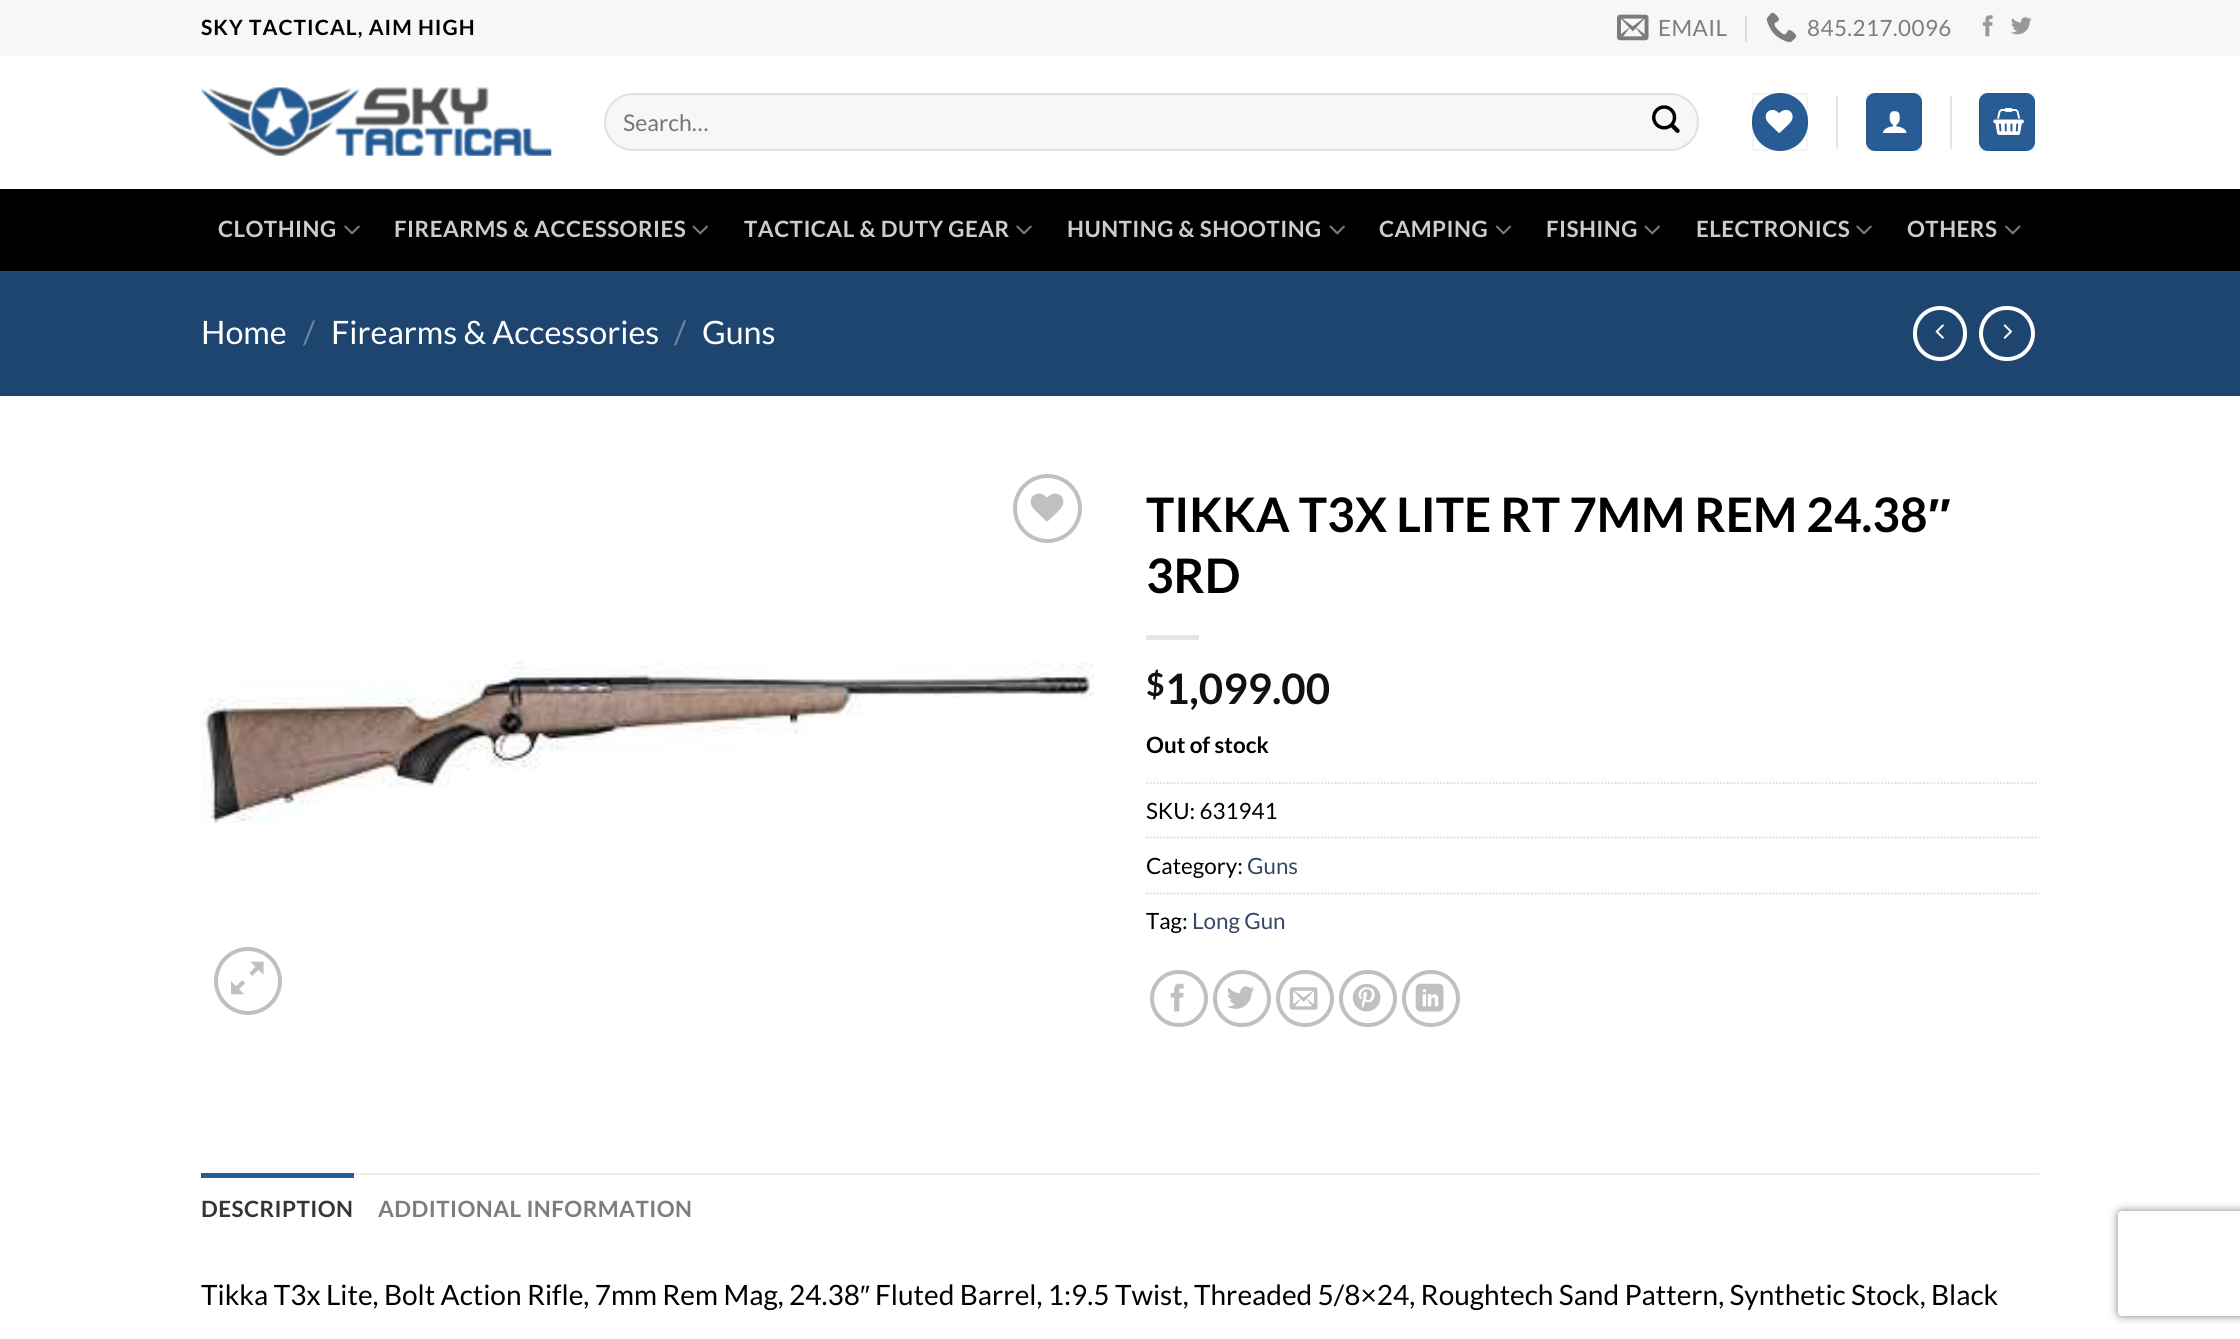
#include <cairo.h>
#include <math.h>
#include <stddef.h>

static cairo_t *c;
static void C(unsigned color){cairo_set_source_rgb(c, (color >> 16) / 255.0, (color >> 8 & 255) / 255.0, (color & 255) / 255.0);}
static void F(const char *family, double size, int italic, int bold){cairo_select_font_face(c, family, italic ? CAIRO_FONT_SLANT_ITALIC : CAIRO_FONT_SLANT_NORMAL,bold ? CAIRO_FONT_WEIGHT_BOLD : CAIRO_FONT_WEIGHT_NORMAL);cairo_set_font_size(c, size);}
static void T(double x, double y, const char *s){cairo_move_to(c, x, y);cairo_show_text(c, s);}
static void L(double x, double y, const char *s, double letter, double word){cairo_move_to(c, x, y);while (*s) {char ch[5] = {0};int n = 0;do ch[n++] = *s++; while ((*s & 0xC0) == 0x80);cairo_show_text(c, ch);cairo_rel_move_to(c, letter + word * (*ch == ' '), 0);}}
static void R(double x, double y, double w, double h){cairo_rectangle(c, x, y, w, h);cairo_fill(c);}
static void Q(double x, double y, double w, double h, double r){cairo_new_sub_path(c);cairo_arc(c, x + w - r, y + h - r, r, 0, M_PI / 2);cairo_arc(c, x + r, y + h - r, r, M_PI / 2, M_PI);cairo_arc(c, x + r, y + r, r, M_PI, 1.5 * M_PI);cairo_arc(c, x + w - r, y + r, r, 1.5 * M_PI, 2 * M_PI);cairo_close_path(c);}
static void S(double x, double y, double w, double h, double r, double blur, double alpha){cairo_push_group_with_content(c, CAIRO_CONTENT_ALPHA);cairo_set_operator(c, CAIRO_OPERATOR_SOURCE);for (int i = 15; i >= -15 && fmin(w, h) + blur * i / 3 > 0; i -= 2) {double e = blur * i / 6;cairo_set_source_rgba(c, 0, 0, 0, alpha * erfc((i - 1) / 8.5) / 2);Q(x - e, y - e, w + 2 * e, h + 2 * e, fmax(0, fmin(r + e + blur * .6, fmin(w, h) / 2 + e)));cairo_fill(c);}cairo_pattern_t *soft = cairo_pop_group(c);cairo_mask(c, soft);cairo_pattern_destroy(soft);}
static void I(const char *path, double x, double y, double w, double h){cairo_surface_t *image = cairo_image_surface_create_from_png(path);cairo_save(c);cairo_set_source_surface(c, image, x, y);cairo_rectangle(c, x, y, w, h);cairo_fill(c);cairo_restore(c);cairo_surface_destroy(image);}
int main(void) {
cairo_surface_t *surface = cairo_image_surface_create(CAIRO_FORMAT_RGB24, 2240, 1339);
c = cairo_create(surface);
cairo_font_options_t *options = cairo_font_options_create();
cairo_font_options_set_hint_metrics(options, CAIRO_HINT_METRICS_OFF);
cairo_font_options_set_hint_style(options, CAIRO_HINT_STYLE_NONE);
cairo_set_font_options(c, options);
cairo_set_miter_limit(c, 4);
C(0xffffff);
cairo_paint(c);
C(0xf7f7f7);
R(0,0,2240,56);
F("Lato",21,0,1);
C(0x000000);
L(201,35,"SKY TACTICAL, AIM HIGH",1.05,0);
I("1.png",1617,14,32,27);
F("Lato",22.4,0,0);
C(0x7d7d7d);
L(1658,36,"EMAIL",.45,0);
C(0xdedede);
R(1745,16,2,26);
I("2.png",1766,12,31,31);
C(0x7d7d7d);
L(1807,36,"845.217.0096",.45,0);
I("3.png",1982,15,11,22);
I("4.png",2011,17,21,18);
I("5.png",201,87,351,69);
C(0xf7f7f7);
Q(604,93,1095,58,29);
cairo_fill(c);
Q(605,94,1093,56,28);
cairo_set_source_rgba(c,0,0,0,0.09);
cairo_stroke(c);
F("Lato",23,0,0);
C(0x757575);
T(623,131,"Search…");
I("6.png",1652,105,28,28);
C(0x275d94);
Q(1752,93,56,58,28);
cairo_fill(c);
cairo_rectangle(c,1753,94,54,56);
cairo_set_source_rgba(c,0,0,0,0.05);
cairo_stroke(c);
I("7.png",1765,109,28,24);
C(0xe6e6e6);
R(1836,96,2,53);
C(0x275d94);
Q(1866,93,56,58,9);
cairo_fill(c);
cairo_rectangle(c,1867,94,54,56);
cairo_set_source_rgba(c,0,0,0,0.05);
cairo_stroke(c);
I("8.png",1883,111,24,22);
C(0xe6e6e6);
R(1950,96,2,53);
C(0x275d94);
Q(1979,93,56,58,9);
cairo_fill(c);
cairo_rectangle(c,1980,94,54,56);
cairo_set_source_rgba(c,0,0,0,0.05);
cairo_stroke(c);
I("9.png",1993,108,31,27);
C(0x000000);
R(0,189,2240,82);
F("Lato",22.4,0,1);
C(0xcccccc);
L(218,237,"CLOTHING",.45,0);
I("10.png",344,225,16,10);
L(394,237,"FIREARMS & ACCESSORIES",.45,0);
I("11.png",692,225,16,10);
L(744,237,"TACTICAL & DUTY GEAR",.45,0);
I("10.png",1016,225,16,10);
L(1067,237,"HUNTING & SHOOTING",.45,0);
I("11.png",1329,225,16,10);
L(1379,237,"CAMPING",.45,0);
I("12.png",1495,225,17,10);
L(1546,237,"FISHING",.45,0);
I("11.png",1644,225,16,10);
L(1696,237,"ELECTRONICS",.45,0);
I("10.png",1856,225,16,10);
L(1907,237,"OTHERS",.45,0);
I("13.png",2005,225,16,10);
C(0x1d456f);
R(0,271,2240,125);
F("Lato",32.25,0,0);
C(0xffffff);
T(201,344,"Home");
C(0x6c86a1);
T(303,344,"/");
C(0xffffff);
T(331,344,"Firearms & Accessories");
C(0x6c86a1);
T(674,344,"/");
C(0xffffff);
T(702,344,"Guns");
Q(1915,308,50,51,25);
cairo_set_line_width(c,4);
cairo_stroke(c);
I("14.png",1935,324,9,15);
Q(1981,308,52,51,25.5);
cairo_stroke(c);
I("15.png",2003,324,10,15);
cairo_arc(c,1047.5,508.5,32.5,0,2 * M_PI);
C(0xc0c0c0);
cairo_stroke(c);
I("16.png",1030,493,34,29);
I("17.png",201,662,893,162);
cairo_arc(c,248,981,32,0,2 * M_PI);
cairo_stroke(c);
I("18.png",231,961,33,34);
F("Lato",47.6,0,1);
C(0x000000);
T(1146,532,"TIKKA T3X LITE RT 7MM REM 24.38");
F("Liberation Sans",47.6,0,1);
T(1928,532,"″");
F("Lato",47.6,0,1);
T(1146,593,"3RD");
C(0xe6e6e6);
R(1146,635,53,5);
F("Lato",32,0,1);
C(0x111111);
T(1146,696,"$");
F("Lato",42,0,1);
T(1165,704,"1,099.00");
F("Lato",22.4,0,1);
C(0x000000);
T(1146,753,"Out of stock");
cairo_new_path(c);
cairo_move_to(c,1146,783);
cairo_line_to(c,2039,783);
C(0xdddddd);
cairo_set_line_width(c,1.8);
cairo_set_dash(c,(double[]){1.75,1.75},2,0);
cairo_stroke(c);
F("Lato",22.4,0,0);
C(0x000000);
T(1146,819,"SKU: 631941");
cairo_new_path(c);
cairo_move_to(c,1146,837.5);
cairo_line_to(c,2039,837.5);
C(0xdddddd);
cairo_stroke(c);
C(0x000000);
T(1146,874,"Category:");
C(0x334862);
T(1247,874,"Guns");
cairo_new_path(c);
cairo_move_to(c,1146,893.5);
cairo_line_to(c,2039,893.5);
C(0xdddddd);
cairo_stroke(c);
C(0x000000);
T(1146,929,"Tag:");
C(0x334862);
T(1192,929,"Long Gun");
Q(1152,972,54,53,26.5);
C(0xc0c0c0);
cairo_set_line_width(c,4);
cairo_set_dash(c,NULL,0,0);
cairo_stroke(c);
I("19.png",1170,983,14,29);
Q(1215,972,54,53,26.5);
cairo_stroke(c);
I("20.png",1227,986,28,23);
Q(1278,972,54,53,26.5);
cairo_stroke(c);
I("21.png",1289,987,29,23);
Q(1341,972,54,53,26.5);
cairo_stroke(c);
I("22.png",1352,983,29,29);
Q(1404,972,54,53,26.5);
cairo_stroke(c);
I("23.png",1415,983,29,29);
C(0xececec);
R(354,1173,1685,2);
C(0x275d94);
R(201,1173,153,5);
F("Lato",22.4,0,1);
C(0x363636);
L(201,1217,"DESCRIPTION",.45,0);
C(0x7d7d7d);
L(378,1217,"ADDITIONAL INFORMATION",.45,0);
F("Lato",28,0,0);
C(0x000000);
T(201,1305,"Tikka T3x Lite, Bolt Action Rifle, 7mm Rem Mag, 24.38");
F("Liberation Sans",28,0,0);
T(860,1305,"″");
F("Lato",28,0,0);
T(875,1305,"Fluted Barrel, 1:9.5 Twist, Threaded 5/8×24, Roughtech Sand Pattern, Synthetic Stock, Black");
cairo_save(c);
cairo_set_fill_rule(c,CAIRO_FILL_RULE_EVEN_ODD);
cairo_new_path(c);
cairo_move_to(c,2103,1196);
cairo_line_to(c,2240,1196);
cairo_line_to(c,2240,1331);
cairo_line_to(c,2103,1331);
cairo_close_path(c);
cairo_move_to(c,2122,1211);
cairo_line_to(c,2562,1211);
cairo_curve_to(c,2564,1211,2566,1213,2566,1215);
cairo_line_to(c,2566,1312);
cairo_curve_to(c,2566,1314,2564,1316,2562,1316);
cairo_line_to(c,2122,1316);
cairo_curve_to(c,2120,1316,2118,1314,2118,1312);
cairo_line_to(c,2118,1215);
cairo_curve_to(c,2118,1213,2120,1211,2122,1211);
cairo_close_path(c);
cairo_clip(c);
C(0x808080);
S(2118,1211,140,105,4,4.5,1);
cairo_restore(c);
cairo_surface_write_to_png(surface, "o.png");
cairo_font_options_destroy(options);
cairo_destroy(c);
cairo_surface_destroy(surface);
return 0;
}
